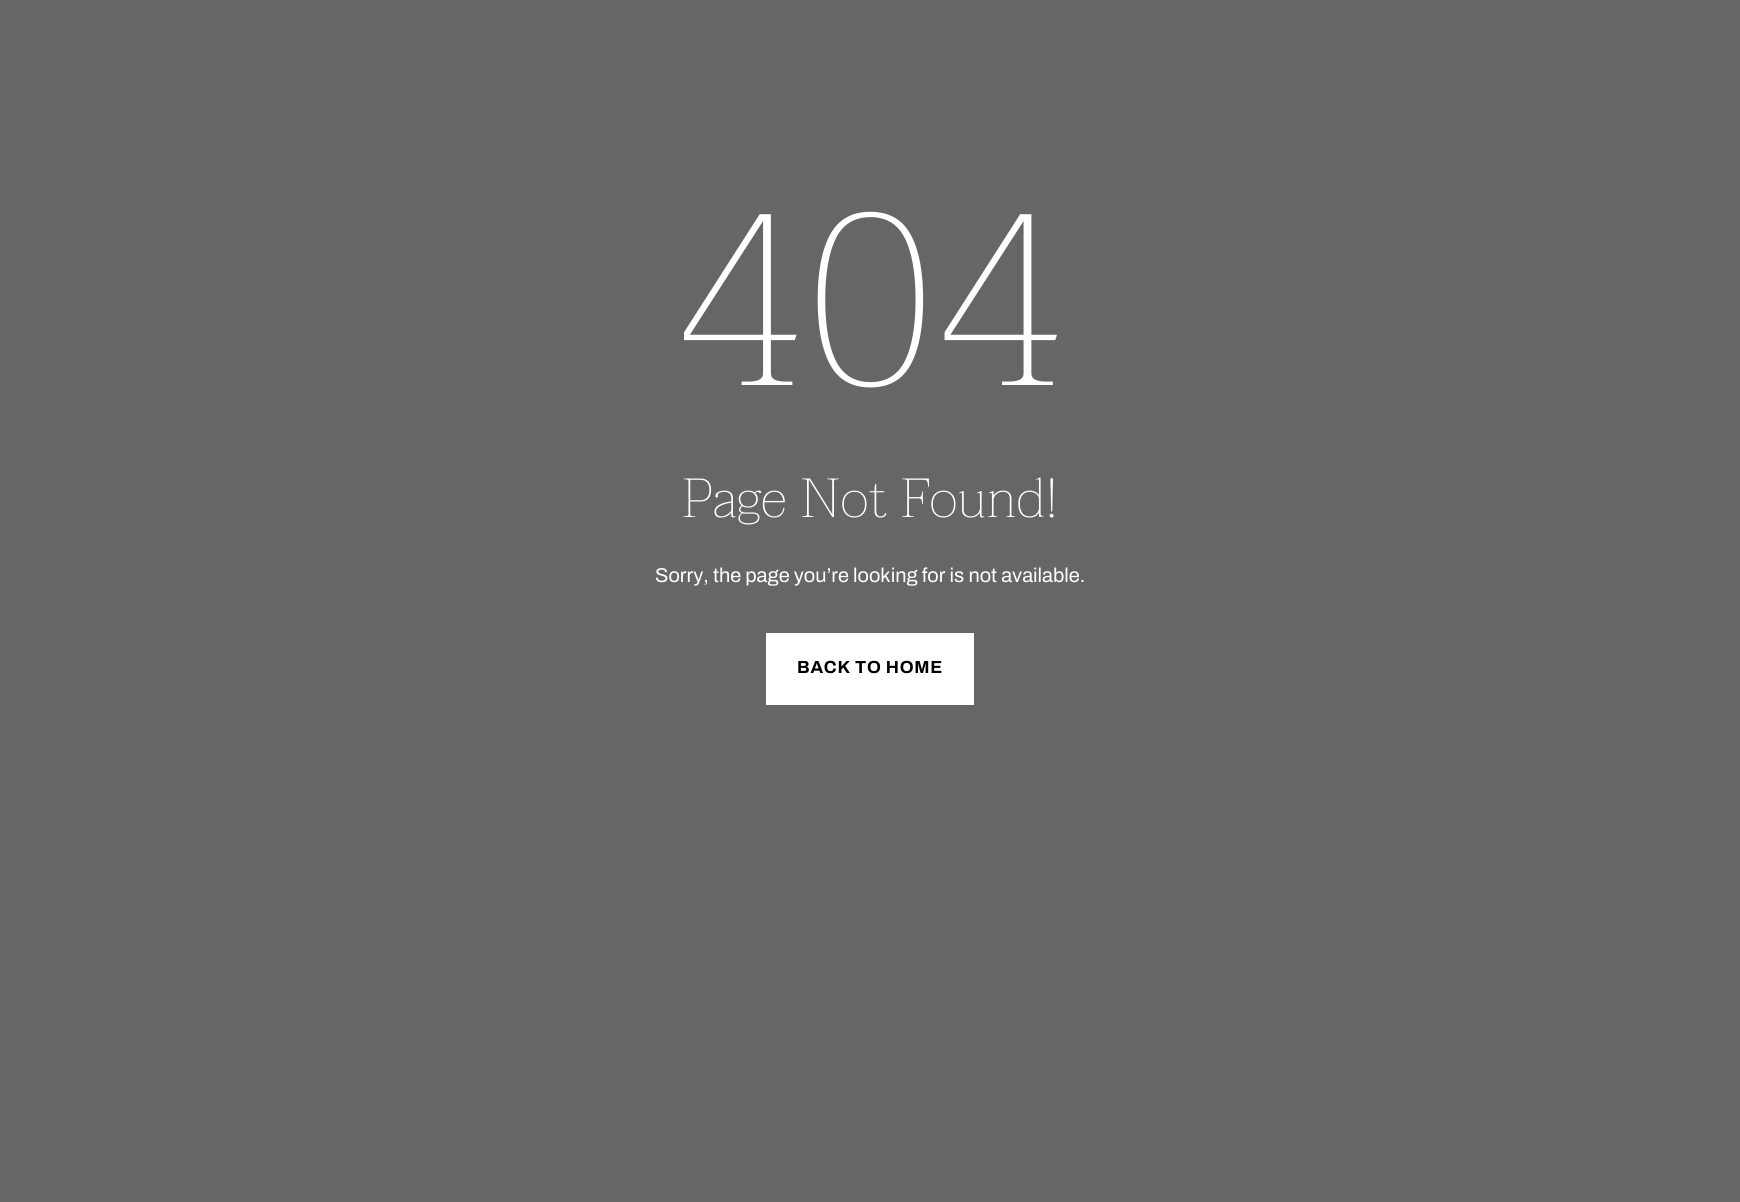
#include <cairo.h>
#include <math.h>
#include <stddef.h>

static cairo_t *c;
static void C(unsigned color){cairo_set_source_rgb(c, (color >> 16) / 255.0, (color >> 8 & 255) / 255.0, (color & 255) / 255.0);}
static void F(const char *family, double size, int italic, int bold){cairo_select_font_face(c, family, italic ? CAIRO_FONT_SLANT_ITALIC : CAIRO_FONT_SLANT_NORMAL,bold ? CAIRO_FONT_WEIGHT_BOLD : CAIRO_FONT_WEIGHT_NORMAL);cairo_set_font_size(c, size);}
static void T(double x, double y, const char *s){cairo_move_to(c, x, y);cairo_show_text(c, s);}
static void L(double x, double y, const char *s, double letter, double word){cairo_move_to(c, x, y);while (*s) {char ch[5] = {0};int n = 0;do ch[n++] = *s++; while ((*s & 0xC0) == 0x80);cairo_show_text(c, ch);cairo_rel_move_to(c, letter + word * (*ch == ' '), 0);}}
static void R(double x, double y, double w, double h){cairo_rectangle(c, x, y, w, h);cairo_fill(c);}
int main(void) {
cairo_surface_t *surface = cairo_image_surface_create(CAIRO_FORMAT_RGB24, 1740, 1202);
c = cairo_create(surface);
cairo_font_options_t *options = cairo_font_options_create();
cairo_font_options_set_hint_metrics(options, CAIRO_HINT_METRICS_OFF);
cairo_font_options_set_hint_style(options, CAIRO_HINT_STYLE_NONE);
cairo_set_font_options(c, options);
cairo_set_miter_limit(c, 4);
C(0x666666);
cairo_paint(c);
F("Taviraj ExtraLight",244,0,0);
C(0xffffff);
T(675,385,"404");
F("Taviraj ExtraLight",55,0,0);
T(682,517,"Page Not Found!");
F("Archivo",20,0,0);
T(655,582,"Sorry, the page you’re looking for is not available.");
R(766,633,208,72);
F("Archivo",17.5,0,1);
C(0x000000);
L(797,673,"BACK TO HOME",.75,0);
cairo_surface_write_to_png(surface, "o.png");
cairo_font_options_destroy(options);
cairo_destroy(c);
cairo_surface_destroy(surface);
return 0;
}
